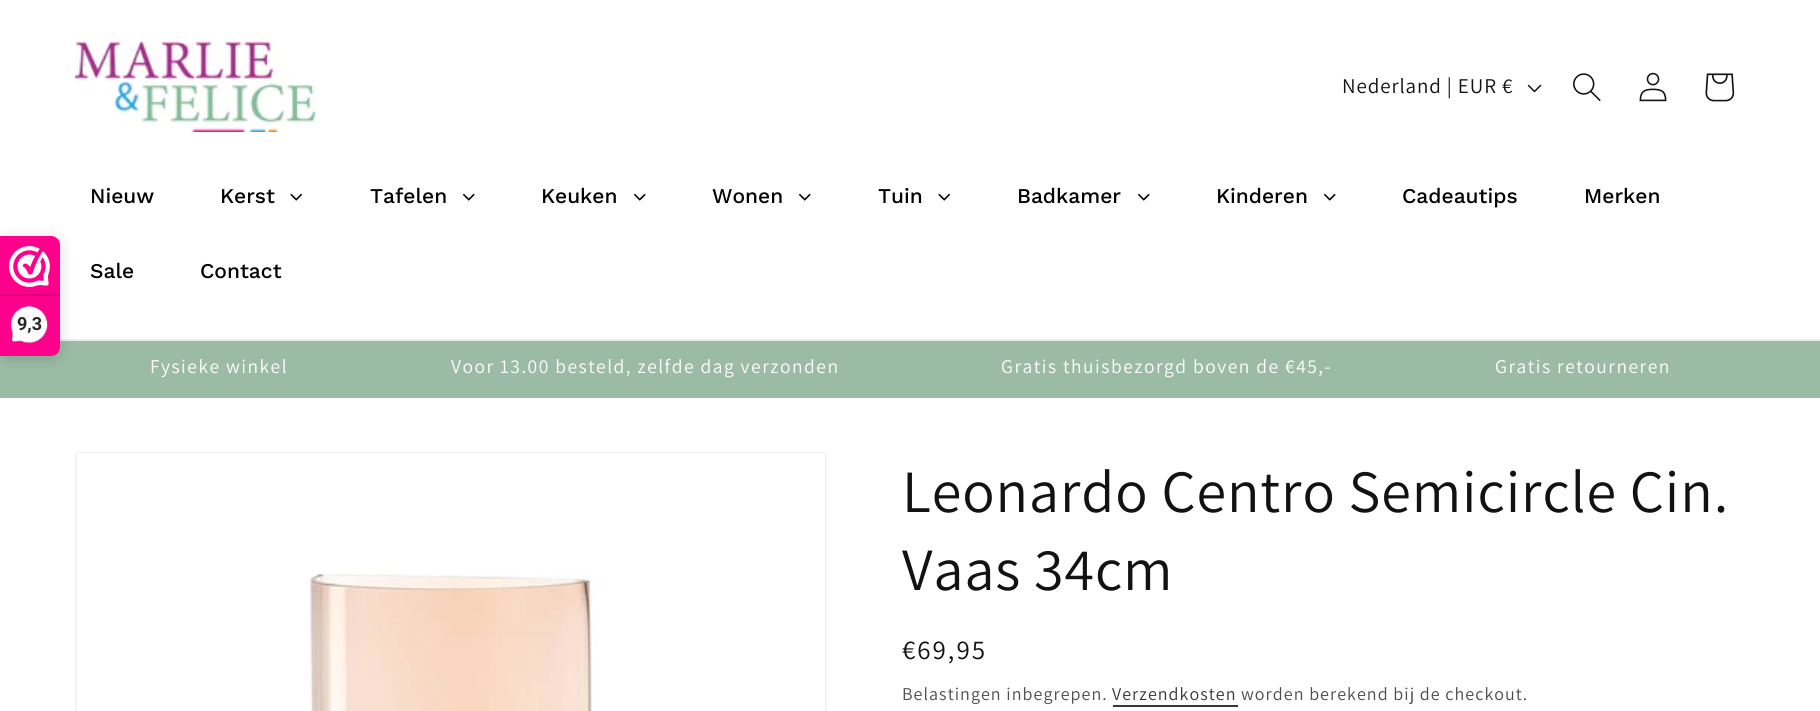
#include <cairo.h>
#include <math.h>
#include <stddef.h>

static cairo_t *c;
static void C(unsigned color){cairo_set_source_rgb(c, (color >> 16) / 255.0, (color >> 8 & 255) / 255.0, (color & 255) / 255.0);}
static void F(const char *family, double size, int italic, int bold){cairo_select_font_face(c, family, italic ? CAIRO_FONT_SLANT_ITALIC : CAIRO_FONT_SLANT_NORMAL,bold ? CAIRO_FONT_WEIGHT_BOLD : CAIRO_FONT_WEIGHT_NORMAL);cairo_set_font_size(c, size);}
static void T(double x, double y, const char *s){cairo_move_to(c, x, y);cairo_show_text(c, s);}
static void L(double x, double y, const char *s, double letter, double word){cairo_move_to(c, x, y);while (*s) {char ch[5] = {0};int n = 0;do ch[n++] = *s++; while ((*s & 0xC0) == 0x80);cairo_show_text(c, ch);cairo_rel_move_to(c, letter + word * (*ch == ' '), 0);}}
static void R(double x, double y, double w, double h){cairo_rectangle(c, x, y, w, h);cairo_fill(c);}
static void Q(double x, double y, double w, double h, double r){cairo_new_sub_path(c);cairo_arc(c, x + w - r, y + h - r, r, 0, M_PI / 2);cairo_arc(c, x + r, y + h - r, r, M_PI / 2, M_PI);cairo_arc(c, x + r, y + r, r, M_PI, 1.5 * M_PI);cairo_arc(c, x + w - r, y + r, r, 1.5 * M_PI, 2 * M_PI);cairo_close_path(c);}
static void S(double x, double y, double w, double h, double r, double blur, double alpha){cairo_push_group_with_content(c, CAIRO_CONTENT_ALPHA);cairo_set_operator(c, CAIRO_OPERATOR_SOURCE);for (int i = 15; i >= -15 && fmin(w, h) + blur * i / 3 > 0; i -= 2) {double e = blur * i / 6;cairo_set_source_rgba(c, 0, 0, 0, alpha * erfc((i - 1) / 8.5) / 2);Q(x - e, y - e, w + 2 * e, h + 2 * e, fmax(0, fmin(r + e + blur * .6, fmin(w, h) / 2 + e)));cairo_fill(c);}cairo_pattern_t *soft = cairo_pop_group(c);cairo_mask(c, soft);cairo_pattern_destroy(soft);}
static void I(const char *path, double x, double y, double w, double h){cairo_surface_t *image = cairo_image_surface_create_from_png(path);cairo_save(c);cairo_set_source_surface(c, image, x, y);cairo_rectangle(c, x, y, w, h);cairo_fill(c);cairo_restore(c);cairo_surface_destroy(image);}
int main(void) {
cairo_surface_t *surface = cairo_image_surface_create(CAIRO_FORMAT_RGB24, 1820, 711);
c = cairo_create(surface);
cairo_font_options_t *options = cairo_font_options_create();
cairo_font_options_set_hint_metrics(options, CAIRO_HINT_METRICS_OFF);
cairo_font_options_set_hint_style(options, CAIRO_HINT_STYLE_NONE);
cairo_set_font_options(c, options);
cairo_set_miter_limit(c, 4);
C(0xffffff);
cairo_paint(c);
C(0xececec);
R(60,339,1760,2);
I("1.png",75,41,240,91);
F("Assistant",21,0,0);
C(0x121212);
L(1342,93,"Nederland | EUR €",.9,0);
I("2.png",1527,84,15,9);
I("3.png",1573,73,28,28);
I("4.png",1639,72,28,30);
I("5.png",1705,73,30,29);
F("Work Sans Medium",21,0,0);
C(0x000000);
T(90,203,"Nieuw");
T(220,203,"Kerst");
I("6.png",290,193,12,8);
T(370,203,"Tafelen");
I("7.png",463,193,12,8);
T(541,203,"Keuken");
I("7.png",634,193,12,8);
T(712,203,"Wonen");
I("7.png",799,193,12,8);
T(878,203,"Tuin");
I("6.png",938,193,12,8);
T(1017,203,"Badkamer");
I("7.png",1138,193,12,8);
T(1216,203,"Kinderen");
I("7.png",1324,193,12,8);
T(1402,203,"Cadeautips");
T(1584,203,"Merken");
T(90,278,"Sale");
T(200,278,"Contact");
C(0x9bbba4);
R(0,341,1820,57);
C(0x000000);
S(0,239,60,120,9,7.5,.15);
C(0xfe008c);
cairo_new_path(c);
cairo_move_to(c,0,236);
cairo_line_to(c,51,236);
cairo_curve_to(c,56,236,60,240,60,245);
cairo_line_to(c,60,347);
cairo_curve_to(c,60,352,56,356,51,356);
cairo_line_to(c,0,356);
cairo_close_path(c);
cairo_fill(c);
I("8.png",9,246,41,41);
C(0xd80077);
R(0,294,59,2);
I("9.png",10,306,38,38);
F("Roboto",18,0,1);
C(0x272626);
T(17,330,"9,3");
F("Assistant",19.5,0,0);
C(0xffffff);
L(150,373,"Fysieke winkel",1.5,0);
L(451,373,"Voor 13.00 besteld, zelfde dag verzonden",1.5,0);
L(1001,373,"Gratis thuisbezorgd boven de €45,-",1.5,0);
L(1495,373,"Gratis retourneren",1.5,0);
cairo_rectangle(c,76,453,750,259);
C(0xf3f3f3);
cairo_stroke(c);
I("10.png",77,453,748,258);
F("Assistant",60,0,0);
C(0x121212);
L(902,512,"Leonardo Centro Semicircle Cin.",.9,0);
L(902,590,"Vaas 34cm",.9,0);
F("Assistant",27,0,0);
L(902,659,"€69,95",2,0);
F("Assistant",18,0,0);
C(0x4d4d4d);
L(902,700,"Belastingen inbegrepen.",1.05,0);
C(0x363636);
L(1112,700,"Verzendkosten",1.05,0);
R(1113,705,125,2);
C(0x4d4d4d);
L(1241,700,"worden berekend bij de checkout.",1.05,0);
cairo_surface_write_to_png(surface, "o.png");
cairo_font_options_destroy(options);
cairo_destroy(c);
cairo_surface_destroy(surface);
return 0;
}
